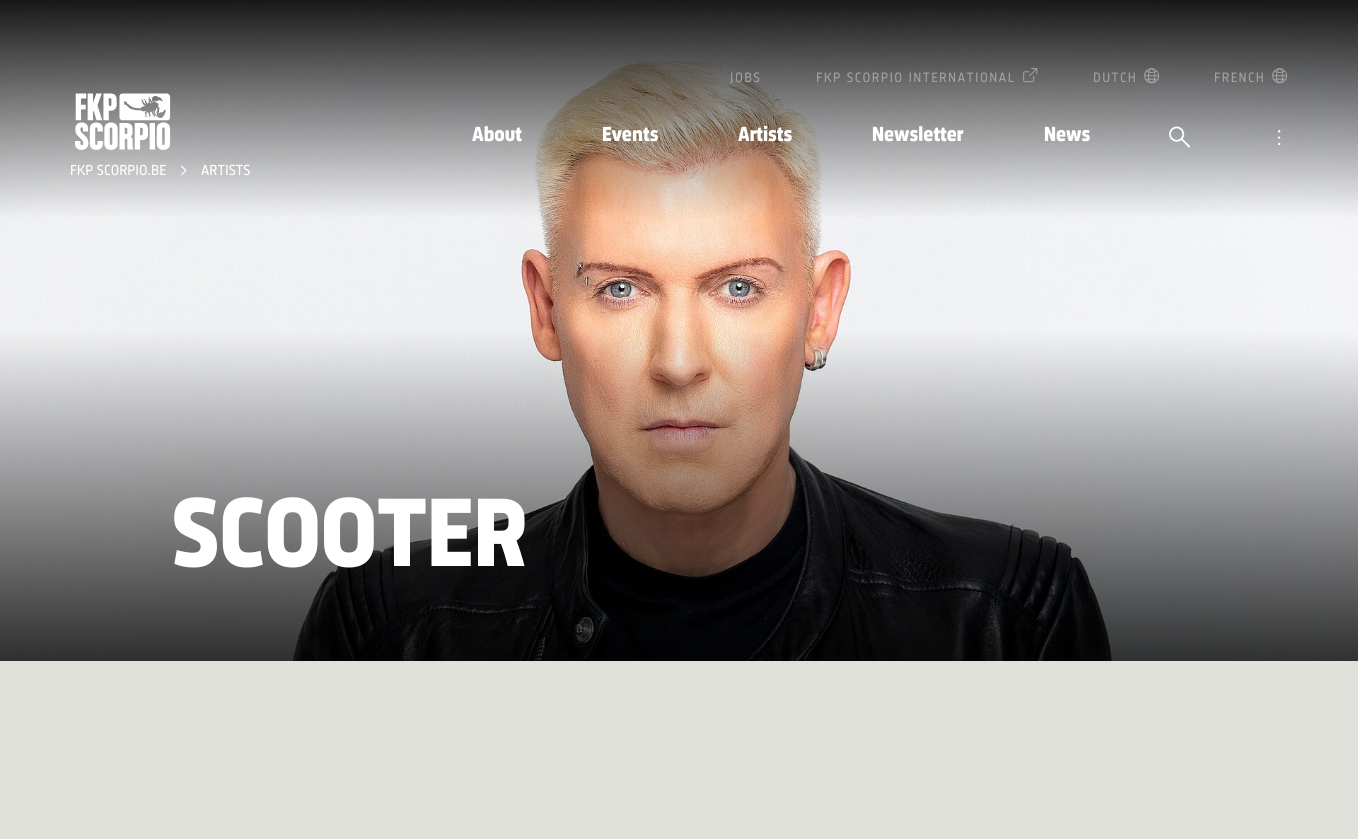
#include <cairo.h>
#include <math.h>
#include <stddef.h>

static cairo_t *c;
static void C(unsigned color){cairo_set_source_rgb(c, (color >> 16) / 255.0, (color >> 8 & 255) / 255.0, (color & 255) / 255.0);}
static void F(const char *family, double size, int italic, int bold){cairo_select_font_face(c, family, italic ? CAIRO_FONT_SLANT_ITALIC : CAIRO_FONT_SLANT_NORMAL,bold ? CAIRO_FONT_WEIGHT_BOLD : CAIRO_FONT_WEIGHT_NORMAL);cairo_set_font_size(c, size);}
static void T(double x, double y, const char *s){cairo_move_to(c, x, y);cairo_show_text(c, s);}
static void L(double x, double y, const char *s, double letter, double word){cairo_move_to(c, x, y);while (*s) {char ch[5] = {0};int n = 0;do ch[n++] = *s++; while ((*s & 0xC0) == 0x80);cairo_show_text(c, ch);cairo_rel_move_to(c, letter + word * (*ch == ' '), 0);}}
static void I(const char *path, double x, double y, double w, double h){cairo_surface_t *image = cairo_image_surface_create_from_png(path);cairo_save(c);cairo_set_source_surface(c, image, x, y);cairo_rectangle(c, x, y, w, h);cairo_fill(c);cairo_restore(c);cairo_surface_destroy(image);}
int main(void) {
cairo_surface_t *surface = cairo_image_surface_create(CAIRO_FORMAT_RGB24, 1358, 839);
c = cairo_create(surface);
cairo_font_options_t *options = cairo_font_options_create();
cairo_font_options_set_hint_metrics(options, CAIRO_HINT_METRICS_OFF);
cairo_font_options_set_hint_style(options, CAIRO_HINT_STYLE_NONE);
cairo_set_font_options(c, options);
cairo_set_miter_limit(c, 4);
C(0xe0e1db);
cairo_paint(c);
I("8.png",0,0,1358,661);
F("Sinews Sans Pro",14,0,0);
C(0xa2a1a0);
L(730,82,"JOBS",1.4,0);
L(816,82,"FKP SCORPIO INTERNATIONAL",1.4,0);
I("1.png",1023,68,15,15);
L(1093,82,"DUTCH",1.4,0);
I("2.png",1144,68,16,16);
L(1214,82,"FRENCH",1.4,0);
I("3.png",1272,68,16,16);
I("4.png",75,93,96,57);
F("Sinews Sans Pro",21,0,1);
C(0xffffff);
T(472,141,"About");
T(602,141,"Events");
T(738,141,"Artists");
T(872,141,"Newsletter");
T(1044,141,"News");
I("5.png",1169,126,22,22);
I("6.png",1278,130,3,15);
F("Sinews Sans Pro",15,0,0);
T(70,175,"FKP SCORPIO.BE");
I("7.png",181,165,6,11);
T(201,175,"ARTISTS");
F("Sinews Sans Pro",100,0,1);
T(172,566,"SCOOTER");
cairo_surface_write_to_png(surface, "o.png");
cairo_font_options_destroy(options);
cairo_destroy(c);
cairo_surface_destroy(surface);
return 0;
}
